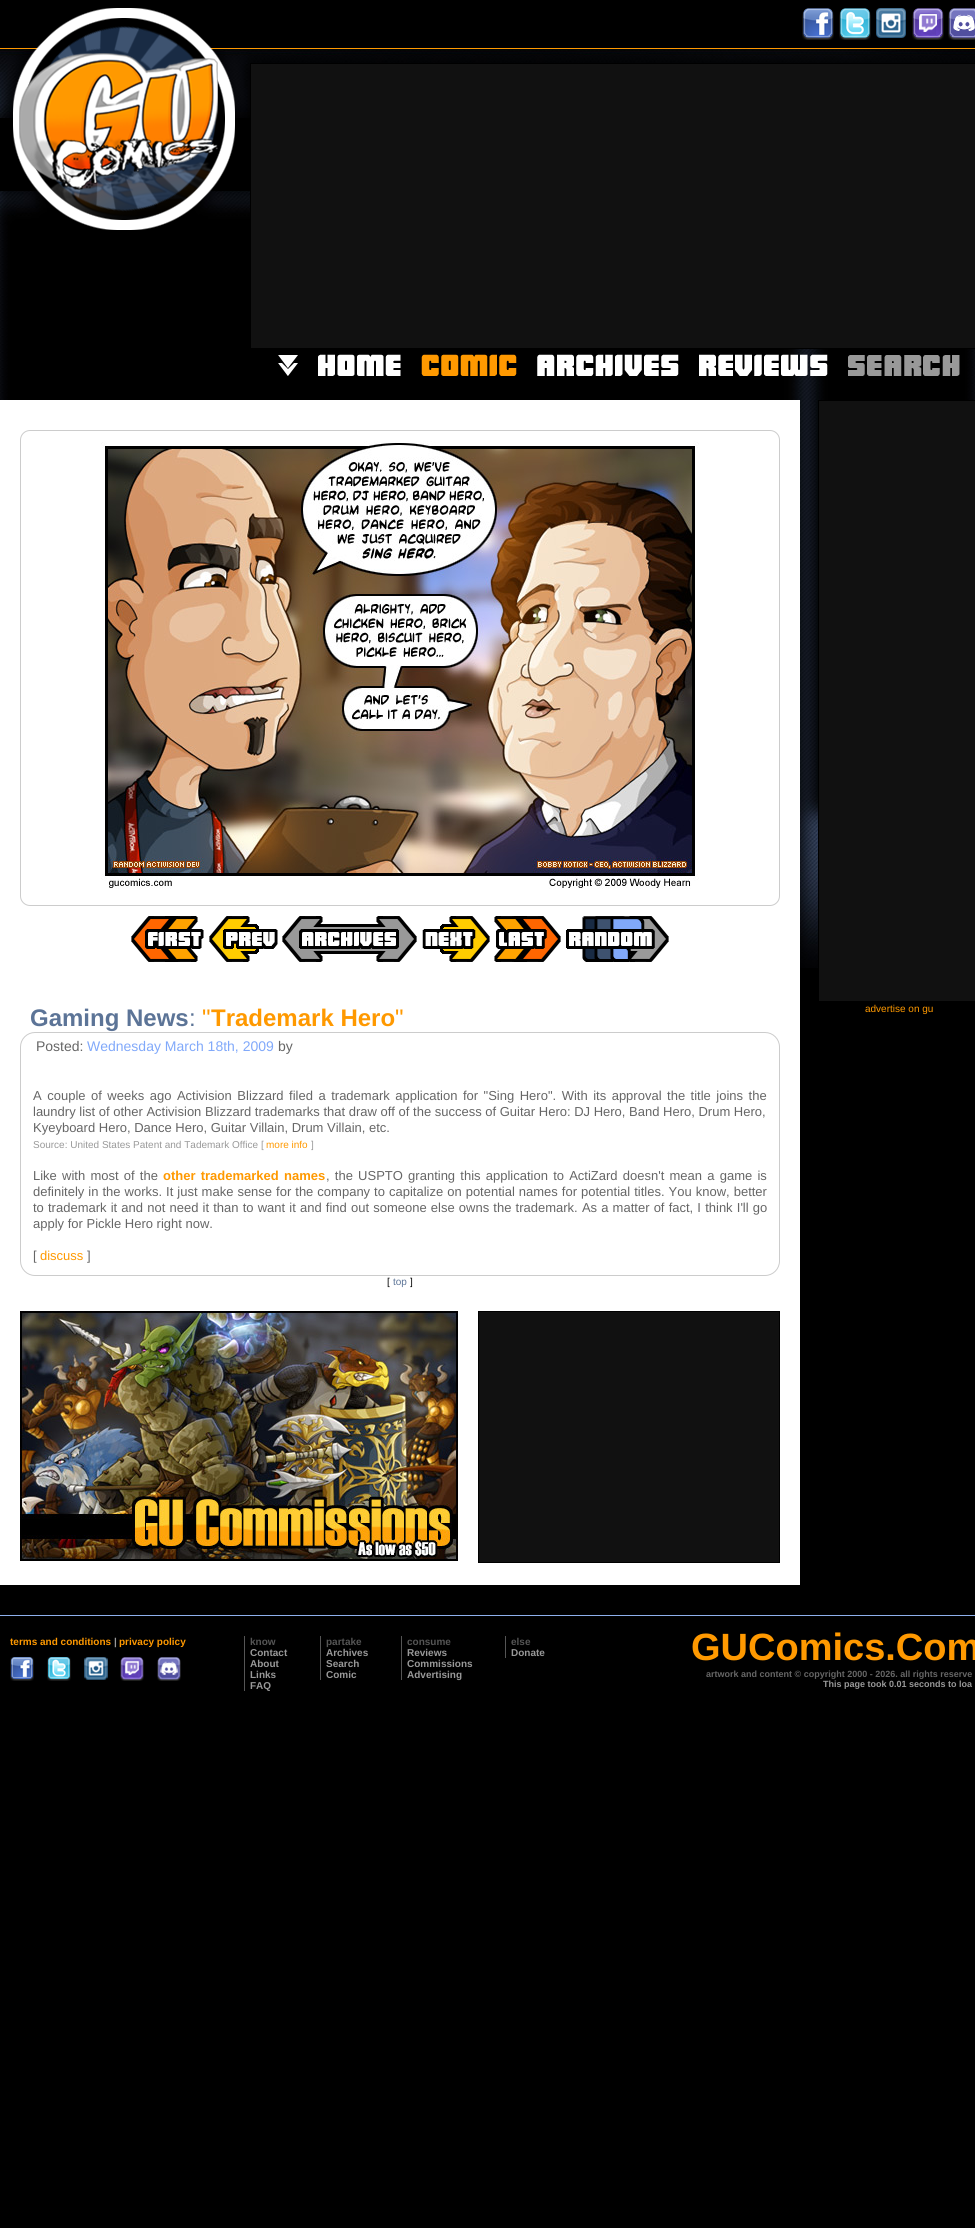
#include <cairo.h>
#include <math.h>
#include <stddef.h>

static cairo_t *c;
static void C(unsigned color){cairo_set_source_rgb(c, (color >> 16) / 255.0, (color >> 8 & 255) / 255.0, (color & 255) / 255.0);}
static void F(const char *family, double size, int italic, int bold){cairo_select_font_face(c, family, italic ? CAIRO_FONT_SLANT_ITALIC : CAIRO_FONT_SLANT_NORMAL,bold ? CAIRO_FONT_WEIGHT_BOLD : CAIRO_FONT_WEIGHT_NORMAL);cairo_set_font_size(c, size);}
static void T(double x, double y, const char *s){cairo_move_to(c, x, y);cairo_show_text(c, s);}
static void L(double x, double y, const char *s, double letter, double word){cairo_move_to(c, x, y);while (*s) {char ch[5] = {0};int n = 0;do ch[n++] = *s++; while ((*s & 0xC0) == 0x80);cairo_show_text(c, ch);cairo_rel_move_to(c, letter + word * (*ch == ' '), 0);}}
static void R(double x, double y, double w, double h){cairo_rectangle(c, x, y, w, h);cairo_fill(c);}
static void Q(double x, double y, double w, double h, double r){cairo_new_sub_path(c);cairo_arc(c, x + w - r, y + h - r, r, 0, M_PI / 2);cairo_arc(c, x + r, y + h - r, r, M_PI / 2, M_PI);cairo_arc(c, x + r, y + r, r, M_PI, 1.5 * M_PI);cairo_arc(c, x + w - r, y + r, r, 1.5 * M_PI, 2 * M_PI);cairo_close_path(c);}
static void I(const char *path, double x, double y, double w, double h){cairo_surface_t *image = cairo_image_surface_create_from_png(path);cairo_save(c);cairo_set_source_surface(c, image, x, y);cairo_rectangle(c, x, y, w, h);cairo_fill(c);cairo_restore(c);cairo_surface_destroy(image);}
int main(void) {
cairo_surface_t *surface = cairo_image_surface_create(CAIRO_FORMAT_RGB24, 975, 2228);
c = cairo_create(surface);
cairo_font_options_t *options = cairo_font_options_create();
cairo_font_options_set_hint_metrics(options, CAIRO_HINT_METRICS_OFF);
cairo_font_options_set_hint_style(options, CAIRO_HINT_STYLE_NONE);
cairo_set_font_options(c, options);
cairo_set_miter_limit(c, 4);
C(0x000000);
cairo_paint(c);
I("1.png",0,48,975,920);
C(0x000000);
R(0,118,250,73);
I("2.png",13,8,222,222);
I("3.png",802,8,32,32);
I("4.png",839,8,32,32);
I("5.png",876,8,30,30);
I("6.png",912,8,32,32);
I("7.png",948,8,27,32);
C(0x111111);
cairo_rectangle(c,250.5,63.5,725,285);
cairo_fill_preserve(c);
C(0x000000);
cairo_set_line_width(c,1);
cairo_stroke(c);
I("8.png",278,355,20,21);
I("9.png",318,354,83,22);
I("10.png",421,354,96,22);
I("11.png",537,354,142,22);
I("12.png",699,354,129,22);
I("13.png",848,355,112,21);
C(0xffffff);
R(0,400,800,1185);
Q(20.5,430.5,759,475,9.5);
C(0xcccccc);
cairo_stroke(c);
I("14.png",101,441,598,448);
I("15.png",131,916,73,46);
I("16.png",209,916,69,46);
I("17.png",282,916,135,46);
I("18.png",422,916,68,46);
I("19.png",494,916,67,46);
I("20.png",566,916,103,46);
F("Liberation Sans",24,0,1);
C(0x5c7497);
T(30,1026,"Gaming News");
F("Liberation Sans",24,0,0);
C(0xff9900);
T(202,1026,"\"");
F("Liberation Sans",24,0,1);
T(211,1026,"Trademark Hero");
F("Liberation Sans",24,0,0);
T(395,1026,"\"");
C(0x5c7497);
T(189,1026,":");
Q(20.5,1032.5,759,243,14.5);
C(0xcccccc);
cairo_stroke(c);
F("Liberation Sans",14,0,0);
C(0x666666);
T(36,1051,"Posted:");
C(0x81a9fa);
T(87,1051,"Wednesday March 18th, 2009");
C(0x666666);
T(278,1051,"by");
F("Liberation Sans",13,0,0);
L(33,1100,"A couple of weeks ago Activision Blizzard filed a trademark application for \"Sing Hero\". With its approval the title joins the",0,1.9);
T(33,1116,"laundry list of other Activision Blizzard trademarks that draw off of the success of Guitar Hero: DJ Hero, Band Hero, Drum Hero,");
T(33,1132,"Kyeyboard Hero, Dance Hero, Guitar Villain, Drum Villain, etc.");
F("Liberation Sans",10,0,0);
C(0x999999);
T(33,1148,"Source: United States Patent and Tademark Office [");
C(0xff9900);
T(266,1148,"more info");
C(0x999999);
T(311,1148,"]");
F("Liberation Sans",13,0,0);
C(0x666666);
L(33,1180,"Like with most of the",0,1.6);
F("Liberation Sans",13,0,1);
C(0xff9900);
L(163,1180,"other trademarked names",0,1.6);
F("Liberation Sans",13,0,0);
C(0x666666);
L(326,1180,", the USPTO granting this application to ActiZard doesn't mean a game is",0,1.6);
L(33,1196,"definitely in the works. It just make sense for the company to capitalize on potential names for potential titles. You know, better",0,.4);
L(33,1212,"to trademark it and not need it than to want it and find out someone else owns the trademark. As a matter of fact, I think I'll go",0,.55);
T(33,1228,"apply for Pickle Hero right now.");
T(33,1260,"[");
C(0xff9900);
T(40,1260,"discuss");
C(0x666666);
T(87,1260,"]");
F("Liberation Sans",10,0,0);
C(0x000000);
T(387,1285,"[");
C(0x5c7497);
T(393,1285,"top");
C(0x000000);
T(410,1285,"]");
I("21.png",20,1311,438,250);
C(0x111111);
cairo_rectangle(c,478.5,1311.5,301,251);
cairo_fill_preserve(c);
C(0x000000);
cairo_stroke(c);
C(0x111111);
cairo_rectangle(c,818.5,400.5,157,601);
cairo_fill_preserve(c);
C(0x000000);
cairo_stroke(c);
C(0xff9900);
T(865,1012,"advertise on gu");
C(0x8eb0ec);
R(0,1615,975,1);
F("Liberation Sans",10,0,1);
C(0xff9900);
T(10,1645,"terms and conditions");
C(0x999999);
T(114,1645,"|");
C(0xff9900);
T(119,1645,"privacy policy");
I("22.png",10,1657,24,24);
I("23.png",47,1657,24,24);
I("24.png",84,1657,24,23);
I("25.png",120,1657,24,24);
I("26.png",157,1657,24,24);
C(0x555555);
R(244,1636,1,55);
T(250,1645,"know");
C(0x999999);
T(250,1656,"Contact");
T(250,1667,"About");
T(250,1678,"Links");
T(250,1689,"FAQ");
C(0x555555);
R(320,1636,1,44);
T(326,1645,"partake");
C(0x999999);
T(326,1656,"Archives");
T(326,1667,"Search");
T(326,1678,"Comic");
C(0x555555);
R(401,1636,1,44);
T(407,1645,"consume");
C(0x999999);
T(407,1656,"Reviews");
T(407,1667,"Commissions");
T(407,1678,"Advertising");
C(0x555555);
R(505,1636,1,22);
T(511,1645,"else");
C(0x999999);
T(511,1656,"Donate");
F("Liberation Sans",38,0,1);
C(0xff9900);
T(691,1660,"GUComics.Com");
F("Liberation Sans",9,0,1);
C(0x666666);
T(706,1677,"artwork and content © copyright 2000 - 2026. all rights reserve");
C(0x999999);
T(823,1687,"This page took 0.01 seconds to loa");
cairo_surface_write_to_png(surface, "o.png");
cairo_font_options_destroy(options);
cairo_destroy(c);
cairo_surface_destroy(surface);
return 0;
}
